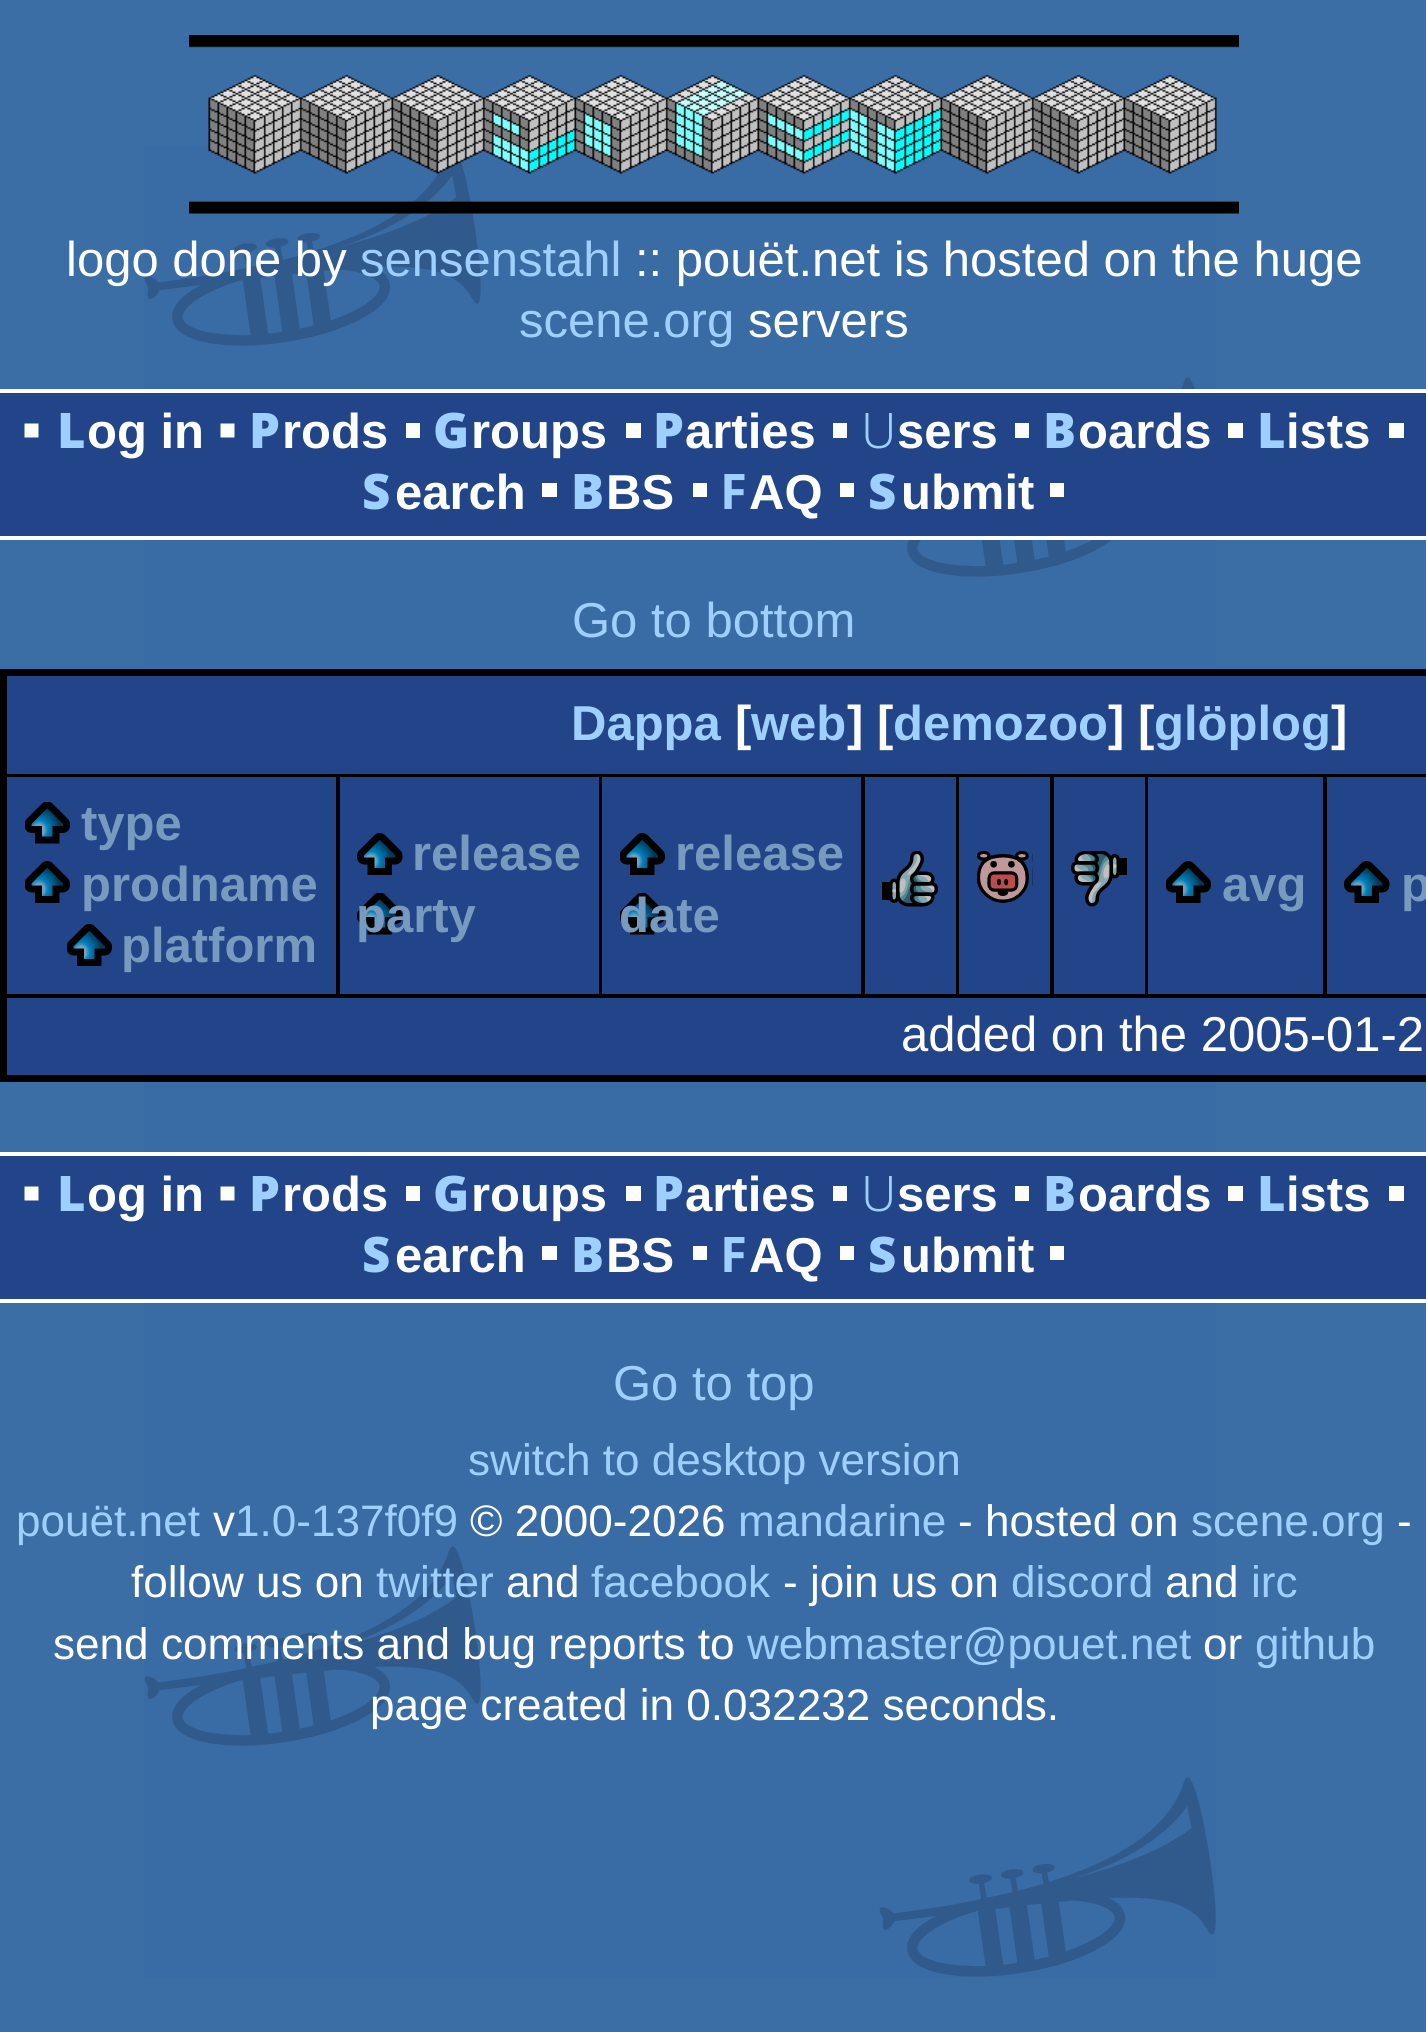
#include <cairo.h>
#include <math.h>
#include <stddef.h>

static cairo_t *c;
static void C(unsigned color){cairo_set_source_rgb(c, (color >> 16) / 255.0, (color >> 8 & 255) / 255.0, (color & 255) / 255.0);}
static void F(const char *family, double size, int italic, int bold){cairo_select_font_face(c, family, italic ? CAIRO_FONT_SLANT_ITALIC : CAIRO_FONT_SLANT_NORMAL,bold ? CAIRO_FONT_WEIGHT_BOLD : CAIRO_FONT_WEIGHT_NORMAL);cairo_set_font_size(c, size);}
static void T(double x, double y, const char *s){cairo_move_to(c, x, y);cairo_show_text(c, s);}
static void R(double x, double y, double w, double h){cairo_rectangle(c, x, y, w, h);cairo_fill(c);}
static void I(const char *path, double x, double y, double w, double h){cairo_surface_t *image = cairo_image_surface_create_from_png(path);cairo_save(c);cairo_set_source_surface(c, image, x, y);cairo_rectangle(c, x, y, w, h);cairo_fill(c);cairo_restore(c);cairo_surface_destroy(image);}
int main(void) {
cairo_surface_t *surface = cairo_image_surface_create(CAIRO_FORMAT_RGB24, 1426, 2032);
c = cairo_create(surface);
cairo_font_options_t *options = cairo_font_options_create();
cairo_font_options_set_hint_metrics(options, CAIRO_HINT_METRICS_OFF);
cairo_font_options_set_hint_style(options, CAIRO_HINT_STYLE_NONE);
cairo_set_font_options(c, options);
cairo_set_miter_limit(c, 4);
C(0x3a6ea5);
cairo_paint(c);
I("1.png",144,146,1072,1831);
I("2.png",189,35,1050,179);
F("Liberation Sans",49,0,0);
C(0xffffff);
T(66,276,"logo done by");
C(0x9fcfff);
T(360,276,"sensenstahl");
C(0xffffff);
T(635,276,":: pouët.net is hosted on the huge");
C(0x9fcfff);
T(519,337,"scene.org");
C(0xffffff);
T(748,337,"servers");
C(0x224488);
R(0,393,1426,143);
C(0xffffff);
R(0,389,1426,4);
R(0,536,1426,4);
I("3.png",24,423,211,15);
F("Noto Sans Black",49,0,0);
C(0x9fcfff);
T(57,448,"L");
F("Liberation Sans",49,0,1);
C(0xffffff);
T(87,448,"og in");
C(0xfcfefc);
R(406,423,14,15);
F("Noto Sans Black",49,0,0);
C(0x9fcfff);
T(249,448,"P");
F("Liberation Sans",49,0,1);
C(0xffffff);
T(282,448,"rods");
C(0xfcfefc);
R(626,423,15,15);
F("Noto Sans Black",49,0,0);
C(0x9fcfff);
T(433,448,"G");
F("Liberation Sans",49,0,1);
C(0xffffff);
T(471,448,"roups");
C(0xfcfefc);
R(833,423,14,15);
F("Noto Sans Black",49,0,0);
C(0x9fcfff);
T(653,448,"P");
F("Liberation Sans",49,0,1);
C(0xffffff);
T(685,448,"arties");
C(0xfcfefc);
R(1015,423,14,15);
F("Noto Sans Light",49,0,0);
C(0x9fcfff);
T(861,448,"U");
F("Liberation Sans",49,0,1);
C(0xffffff);
T(897,448,"sers");
C(0xfcfefc);
R(1228,423,15,15);
F("Noto Sans Black",49,0,0);
C(0x9fcfff);
T(1043,448,"B");
F("Liberation Sans",49,0,1);
C(0xffffff);
T(1078,448,"oards");
C(0xfcfefc);
R(1389,423,15,15);
F("Noto Sans Black",49,0,0);
C(0x9fcfff);
T(1257,448,"L");
F("Liberation Sans",49,0,1);
C(0xffffff);
T(1286,448,"ists");
C(0xfcfefc);
R(542,483,15,14);
F("Noto Sans Black",49,0,0);
C(0x9fcfff);
T(362,509,"S");
F("Liberation Sans",49,0,1);
C(0xffffff);
T(395,509,"earch");
C(0xfcfefc);
R(693,483,14,14);
F("Noto Sans Black",49,0,0);
C(0x9fcfff);
T(571,509,"B");
F("Liberation Sans",49,0,1);
C(0xffffff);
T(606,509,"BS");
C(0xfcfefc);
R(840,483,14,14);
F("Noto Sans",49,0,1);
C(0x9fcfff);
T(720,509,"F");
F("Liberation Sans",49,0,1);
C(0xffffff);
T(749,509,"AQ");
C(0xfcfefc);
R(1050,483,14,14);
F("Noto Sans Black",49,0,0);
C(0x9fcfff);
T(868,509,"S");
F("Liberation Sans",49,0,1);
C(0xffffff);
T(901,509,"ubmit");
F("Liberation Sans",49,0,0);
C(0x9fcfff);
T(572,637,"Go to bottom");
C(0x000000);
R(0,669,1426,413);
C(0x224488);
R(7,676,1419,98);
F("Liberation Sans",49,0,1);
C(0x9fcfff);
T(571,740,"Dappa");
C(0xffffff);
T(735,740,"[");
C(0x9fcfff);
T(751,740,"web");
C(0xffffff);
T(847,740,"] [");
C(0x9fcfff);
T(893,740,"demozoo");
C(0xffffff);
T(1108,740,"] [");
C(0x9fcfff);
T(1154,740,"glöplog");
C(0xffffff);
T(1331,740,"]");
C(0x224488);
R(7,777,329,217);
I("4.png",25,802,45,42);
C(0x779bbf);
T(81,840,"type");
I("5.png",25,861,45,42);
T(81,901,"prodname");
I("5.png",67,924,45,42);
T(121,962,"platform");
C(0x224488);
R(340,777,259,217);
I("6.png",357,833,46,102);
C(0x779bbf);
T(412,870,"release");
T(356,932,"party");
C(0x224488);
R(602,777,259,217);
I("7.png",620,833,45,102);
C(0x779bbf);
T(675,870,"release");
T(619,932,"date");
C(0x224488);
R(865,777,91,217);
I("8.png",882,851,56,56);
R(959,777,91,217);
I("9.png",977,851,56,52);
R(1054,777,91,217);
I("10.png",1071,851,56,56);
R(1148,777,175,217);
I("5.png",1166,861,45,42);
C(0x779bbf);
T(1222,901,"avg");
C(0x224488);
R(1327,777,99,217);
I("11.png",1344,861,46,42);
C(0x779bbf);
T(1401,901,"p");
C(0x224488);
R(7,998,1419,77);
F("Liberation Sans",49,0,0);
C(0xffffff);
T(901,1051,"added on the 2005-01-2");
C(0x224488);
R(0,1156,1426,143);
C(0xffffff);
R(0,1152,1426,4);
R(0,1299,1426,4);
I("3.png",24,1186,211,15);
F("Noto Sans Black",49,0,0);
C(0x9fcfff);
T(57,1211,"L");
F("Liberation Sans",49,0,1);
C(0xffffff);
T(87,1211,"og in");
C(0xfcfefc);
R(406,1186,14,15);
F("Noto Sans Black",49,0,0);
C(0x9fcfff);
T(249,1211,"P");
F("Liberation Sans",49,0,1);
C(0xffffff);
T(282,1211,"rods");
C(0xfcfefc);
R(626,1186,15,15);
F("Noto Sans Black",49,0,0);
C(0x9fcfff);
T(433,1211,"G");
F("Liberation Sans",49,0,1);
C(0xffffff);
T(471,1211,"roups");
C(0xfcfefc);
R(833,1186,14,15);
F("Noto Sans Black",49,0,0);
C(0x9fcfff);
T(653,1211,"P");
F("Liberation Sans",49,0,1);
C(0xffffff);
T(685,1211,"arties");
C(0xfcfefc);
R(1015,1186,14,15);
F("Noto Sans Light",49,0,0);
C(0x9fcfff);
T(861,1211,"U");
F("Liberation Sans",49,0,1);
C(0xffffff);
T(897,1211,"sers");
C(0xfcfefc);
R(1228,1186,15,15);
F("Noto Sans Black",49,0,0);
C(0x9fcfff);
T(1043,1211,"B");
F("Liberation Sans",49,0,1);
C(0xffffff);
T(1078,1211,"oards");
C(0xfcfefc);
R(1389,1186,15,15);
F("Noto Sans Black",49,0,0);
C(0x9fcfff);
T(1257,1211,"L");
F("Liberation Sans",49,0,1);
C(0xffffff);
T(1286,1211,"ists");
C(0xfcfefc);
R(542,1246,15,14);
F("Noto Sans Black",49,0,0);
C(0x9fcfff);
T(362,1272,"S");
F("Liberation Sans",49,0,1);
C(0xffffff);
T(395,1272,"earch");
C(0xfcfefc);
R(693,1246,14,14);
F("Noto Sans Black",49,0,0);
C(0x9fcfff);
T(571,1272,"B");
F("Liberation Sans",49,0,1);
C(0xffffff);
T(606,1272,"BS");
C(0xfcfefc);
R(840,1246,14,14);
F("Noto Sans",49,0,1);
C(0x9fcfff);
T(720,1272,"F");
F("Liberation Sans",49,0,1);
C(0xffffff);
T(749,1272,"AQ");
C(0xfcfefc);
R(1050,1246,14,14);
F("Noto Sans Black",49,0,0);
C(0x9fcfff);
T(868,1272,"S");
F("Liberation Sans",49,0,1);
C(0xffffff);
T(901,1272,"ubmit");
F("Liberation Sans",49,0,0);
C(0x9fcfff);
T(613,1400,"Go to top");
F("Liberation Sans",44.1,0,0);
T(468,1475,"switch to desktop version");
T(16,1536,"pouët.net");
C(0xffffff);
T(213,1536,"v");
C(0x9fcfff);
T(235,1536,"1.0-137f0f9");
C(0xffffff);
T(470,1536,"© 2000-2026");
C(0x9fcfff);
T(738,1536,"mandarine");
C(0xffffff);
T(958,1536,"- hosted on");
C(0x9fcfff);
T(1191,1536,"scene.org");
C(0xffffff);
T(1397,1536,"-");
T(131,1597,"follow us on");
C(0x9fcfff);
T(376,1597,"twitter");
C(0xffffff);
T(506,1597,"and");
C(0x9fcfff);
T(591,1597,"facebook");
C(0xffffff);
T(783,1597,"- join us on");
C(0x9fcfff);
T(1011,1597,"discord");
C(0xffffff);
T(1165,1597,"and");
C(0x9fcfff);
T(1251,1597,"irc");
C(0xffffff);
T(53,1659,"send comments and bug reports to");
C(0x9fcfff);
T(747,1659,"webmaster@pouet.net");
C(0xffffff);
T(1203,1659,"or");
C(0x9fcfff);
T(1255,1659,"github");
C(0xffffff);
T(370,1720,"page created in 0.032232 seconds.");
cairo_surface_write_to_png(surface, "o.png");
cairo_font_options_destroy(options);
cairo_destroy(c);
cairo_surface_destroy(surface);
return 0;
}
